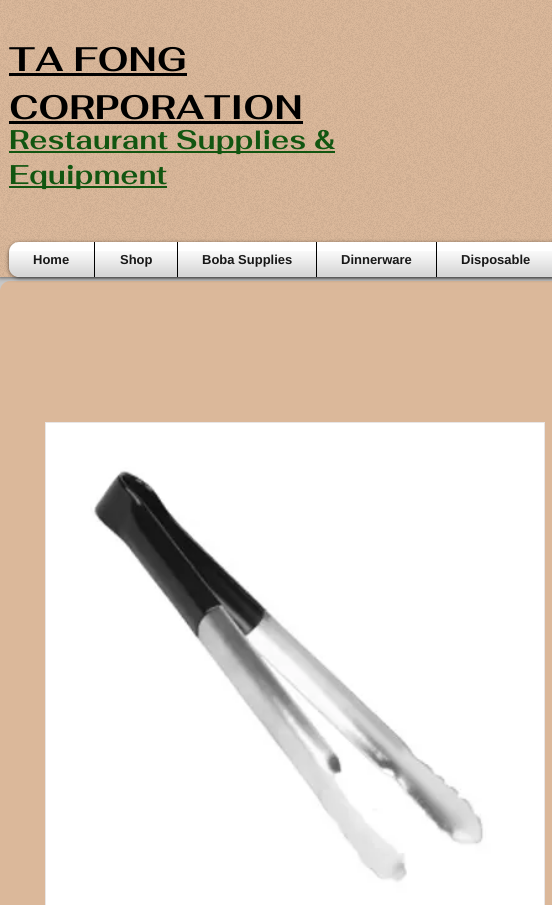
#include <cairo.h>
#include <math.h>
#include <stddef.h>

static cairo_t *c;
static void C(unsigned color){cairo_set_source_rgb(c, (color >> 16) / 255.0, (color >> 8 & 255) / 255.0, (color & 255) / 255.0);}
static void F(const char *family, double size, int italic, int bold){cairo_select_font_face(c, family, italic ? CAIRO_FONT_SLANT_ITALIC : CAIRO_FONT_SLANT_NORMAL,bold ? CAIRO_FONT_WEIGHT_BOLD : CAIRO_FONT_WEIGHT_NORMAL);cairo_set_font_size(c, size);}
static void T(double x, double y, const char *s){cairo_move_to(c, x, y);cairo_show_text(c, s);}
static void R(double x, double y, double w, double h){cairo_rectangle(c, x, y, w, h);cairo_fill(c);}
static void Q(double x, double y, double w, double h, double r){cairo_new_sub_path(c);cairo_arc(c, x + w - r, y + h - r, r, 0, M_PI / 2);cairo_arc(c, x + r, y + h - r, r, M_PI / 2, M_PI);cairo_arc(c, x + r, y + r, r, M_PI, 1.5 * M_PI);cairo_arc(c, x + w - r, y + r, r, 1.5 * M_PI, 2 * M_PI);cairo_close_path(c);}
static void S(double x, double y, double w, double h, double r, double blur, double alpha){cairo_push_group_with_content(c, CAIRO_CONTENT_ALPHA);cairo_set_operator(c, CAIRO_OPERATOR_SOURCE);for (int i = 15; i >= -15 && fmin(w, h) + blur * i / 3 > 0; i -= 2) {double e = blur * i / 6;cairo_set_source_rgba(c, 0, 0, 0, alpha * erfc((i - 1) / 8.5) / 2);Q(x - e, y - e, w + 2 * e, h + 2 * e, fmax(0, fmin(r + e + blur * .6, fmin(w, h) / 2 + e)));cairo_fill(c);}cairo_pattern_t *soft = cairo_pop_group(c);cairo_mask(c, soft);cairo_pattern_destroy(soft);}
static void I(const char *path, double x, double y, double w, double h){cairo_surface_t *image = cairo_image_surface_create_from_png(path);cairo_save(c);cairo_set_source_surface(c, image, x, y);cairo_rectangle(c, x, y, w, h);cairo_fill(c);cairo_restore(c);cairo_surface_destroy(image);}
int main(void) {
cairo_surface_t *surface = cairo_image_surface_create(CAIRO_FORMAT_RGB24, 552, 905);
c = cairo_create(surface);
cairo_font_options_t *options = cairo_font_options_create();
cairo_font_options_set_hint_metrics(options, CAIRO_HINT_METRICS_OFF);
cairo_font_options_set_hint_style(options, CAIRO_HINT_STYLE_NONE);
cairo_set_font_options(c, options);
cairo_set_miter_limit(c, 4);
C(0xc7c7c7);
cairo_paint(c);
C(0xdbb89a);
Q(0,281,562,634,10);
cairo_fill(c);
C(0x000000);
S(0,0,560,277,0,2.5,.7);
C(0xdbb89a);
R(0,0,552,277);
I("1.png",0,0,552,277);
F("Fahkwang",34,0,1);
C(0x000000);
T(9,71,"TA FONG");
R(9,73,178,3);
T(9,119,"CORPORATION");
R(9,121,294,3);
C(0x125611);
R(9,151,326,2);
F("Fahkwang",27,0,1);
T(9,149,"Restaurant Supplies &");
R(9,186,158,2);
T(9,184,"Equipment");
C(0x000000);
S(9,243,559,35,10,2,.6);
C(0xd3c1b1);
R(15,242,1,1);
I("2.png",9,267,10,10);
C(0xffffff);
cairo_new_path(c);
cairo_move_to(c,19,242);
cairo_line_to(c,94,242);
cairo_line_to(c,94,277);
cairo_line_to(c,19,277);
cairo_curve_to(c,13.5,277,9,272.5,9,267);
cairo_line_to(c,9,252);
cairo_curve_to(c,9,246.5,13.5,242,19,242);
cairo_close_path(c);
cairo_fill(c);
F("Liberation Sans",13,0,1);
C(0x000000);
T(33,264,"Home");
I("3.png",34,255,35,9);
I("4.png",9,251,85,26);
C(0xffffff);
R(95,242,82,35);
C(0x000000);
R(94,242,1,35);
T(120,264,"Shop");
I("5.png",120,254,32,13);
I("6.png",95,251,82,26);
C(0xffffff);
R(178,242,138,35);
C(0x000000);
R(177,242,1,35);
T(202,264,"Boba Supplies");
I("7.png",202,254,90,13);
I("8.png",178,251,138,26);
C(0xffffff);
R(317,242,119,35);
C(0x000000);
R(316,242,1,35);
T(341,264,"Dinnerware");
I("9.png",342,254,70,10);
I("10.png",317,251,119,26);
C(0xffffff);
R(437,242,115,35);
C(0x000000);
R(436,242,1,35);
T(461,264,"Disposable");
I("11.png",461,254,69,13);
I("12.png",437,251,115,26);
cairo_rectangle(c,45.5,422.5,499,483);
C(0xe8e6e6);
cairo_set_line_width(c,1);
cairo_stroke(c);
I("13.png",46,423,498,482);
cairo_surface_write_to_png(surface, "o.png");
cairo_font_options_destroy(options);
cairo_destroy(c);
cairo_surface_destroy(surface);
return 0;
}
